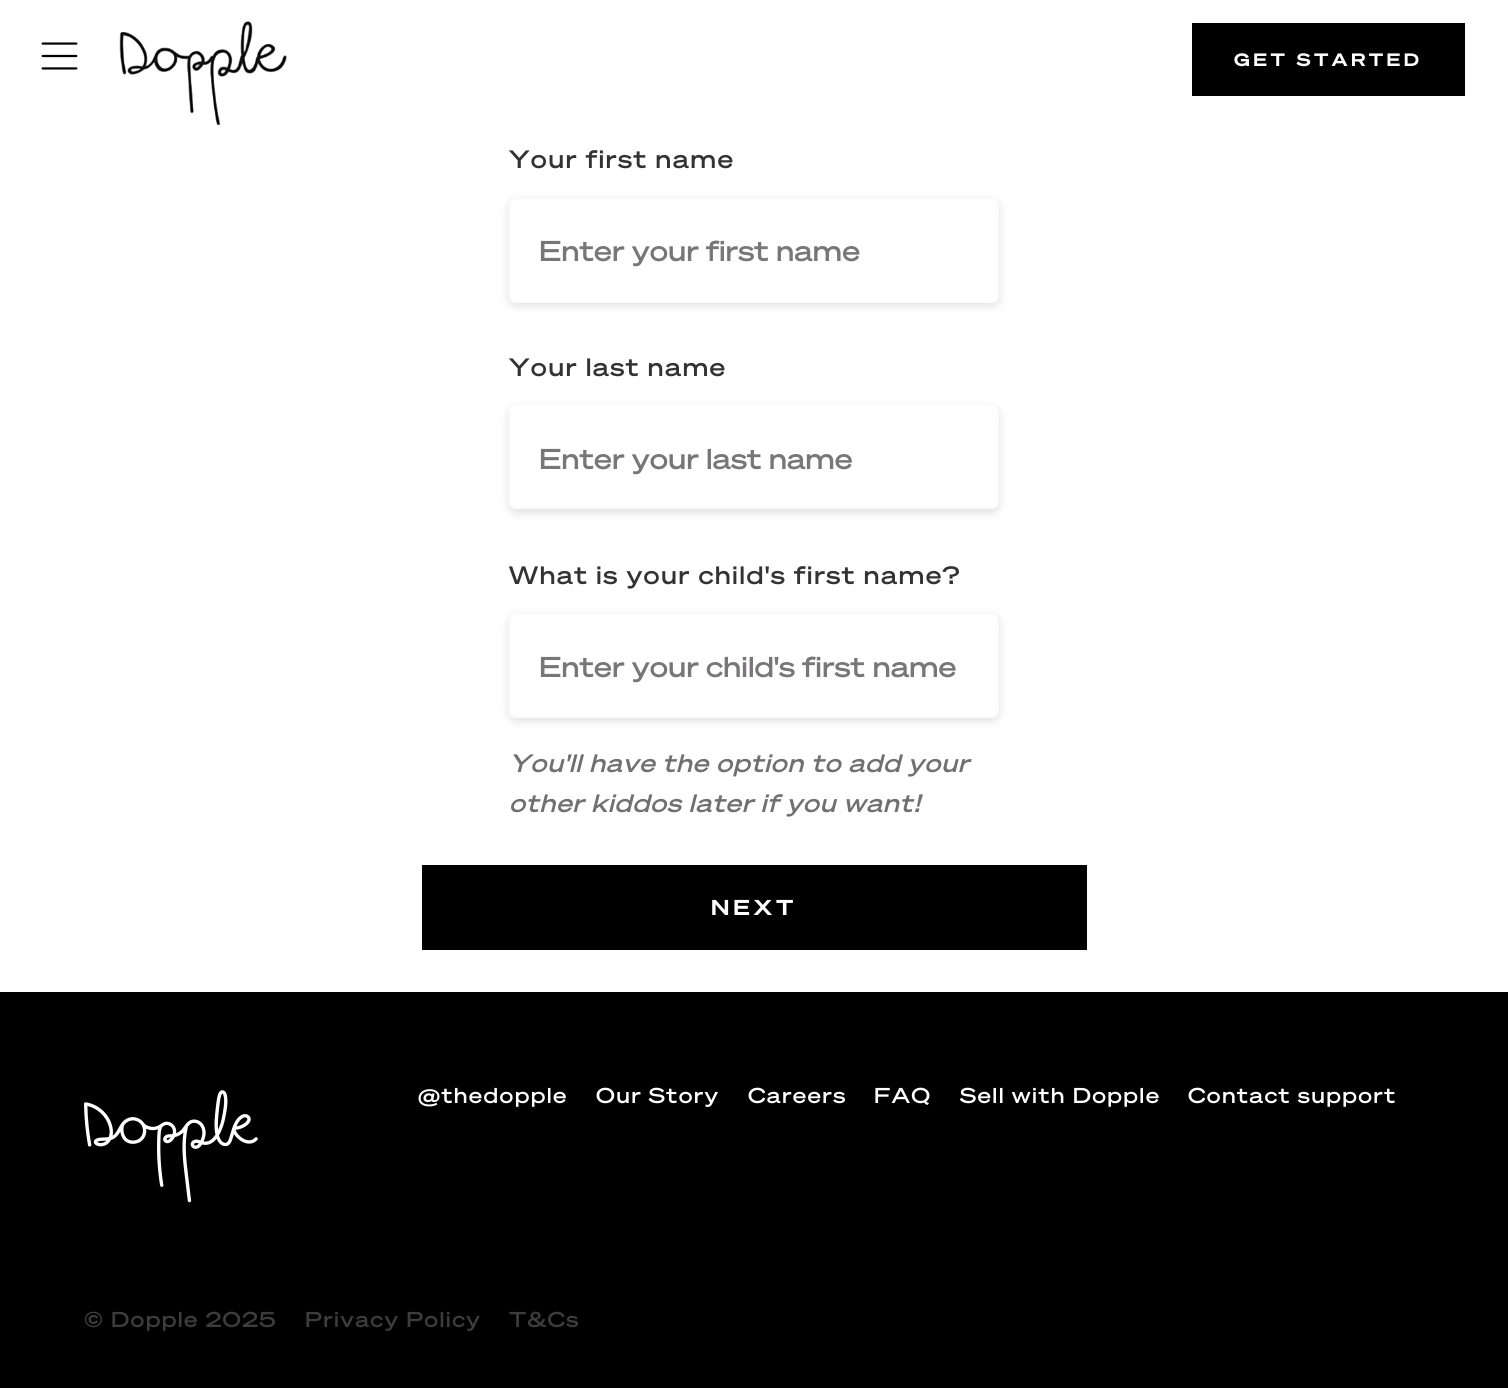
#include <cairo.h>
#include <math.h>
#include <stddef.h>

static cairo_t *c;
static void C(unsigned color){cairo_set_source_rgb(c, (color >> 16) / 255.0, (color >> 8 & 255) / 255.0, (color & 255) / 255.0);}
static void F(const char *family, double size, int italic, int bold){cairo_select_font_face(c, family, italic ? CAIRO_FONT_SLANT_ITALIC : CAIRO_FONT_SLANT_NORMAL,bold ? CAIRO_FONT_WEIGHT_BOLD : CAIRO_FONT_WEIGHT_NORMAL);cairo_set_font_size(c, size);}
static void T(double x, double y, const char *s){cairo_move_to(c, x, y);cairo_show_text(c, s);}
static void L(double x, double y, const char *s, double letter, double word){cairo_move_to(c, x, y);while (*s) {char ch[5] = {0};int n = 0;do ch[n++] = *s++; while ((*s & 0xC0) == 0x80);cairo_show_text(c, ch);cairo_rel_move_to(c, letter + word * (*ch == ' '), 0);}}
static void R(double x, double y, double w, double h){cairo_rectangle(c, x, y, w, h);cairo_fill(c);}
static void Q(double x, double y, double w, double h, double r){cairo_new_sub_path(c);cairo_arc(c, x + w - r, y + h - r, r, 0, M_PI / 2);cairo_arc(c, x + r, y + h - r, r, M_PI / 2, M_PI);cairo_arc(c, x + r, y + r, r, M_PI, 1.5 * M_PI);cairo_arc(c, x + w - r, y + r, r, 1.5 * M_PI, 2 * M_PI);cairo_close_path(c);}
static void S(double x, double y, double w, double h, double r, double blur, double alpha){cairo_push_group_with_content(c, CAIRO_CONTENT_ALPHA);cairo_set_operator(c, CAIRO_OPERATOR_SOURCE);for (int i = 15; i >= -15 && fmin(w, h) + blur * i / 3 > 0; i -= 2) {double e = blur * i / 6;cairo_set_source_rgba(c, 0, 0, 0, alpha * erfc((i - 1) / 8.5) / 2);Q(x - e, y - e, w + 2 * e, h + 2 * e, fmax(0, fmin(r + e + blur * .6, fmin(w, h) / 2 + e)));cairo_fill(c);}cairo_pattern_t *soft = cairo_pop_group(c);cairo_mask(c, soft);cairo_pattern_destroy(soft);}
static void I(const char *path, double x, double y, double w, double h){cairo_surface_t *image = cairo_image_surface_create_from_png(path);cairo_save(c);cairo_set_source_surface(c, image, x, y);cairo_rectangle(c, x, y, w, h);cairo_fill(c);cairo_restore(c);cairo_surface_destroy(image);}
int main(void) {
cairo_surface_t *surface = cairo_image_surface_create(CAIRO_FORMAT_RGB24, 1508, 1388);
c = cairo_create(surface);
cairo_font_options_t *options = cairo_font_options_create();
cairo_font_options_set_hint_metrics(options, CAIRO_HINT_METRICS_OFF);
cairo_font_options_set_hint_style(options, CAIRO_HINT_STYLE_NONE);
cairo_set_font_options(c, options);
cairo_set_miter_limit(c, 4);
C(0xffffff);
cairo_paint(c);
I("1.png",41,42,37,28);
I("2.png",119,21,168,104);
C(0x000000);
R(1192,23,273,73);
F("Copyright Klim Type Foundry",17.5,0,1);
C(0xffffff);
L(1234,66,"GET STARTED",3.5,0);
F("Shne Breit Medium",24.5,0,0);
C(0x333333);
L(509,168,"Your first name",1.4,0);
C(0x5e6164);
S(509,201,490,105,7,5,.2);
C(0xffffff);
Q(510,199,488,103,6);
cairo_fill_preserve(c);
C(0xfbfbfa);
cairo_stroke(c);
F("Shne Breit Medium",28,0,0);
C(0x787679);
T(539,261,"Enter your first name");
F("Shne Breit Medium",24.5,0,0);
C(0x333333);
L(509,376,"Your last name",1.4,0);
C(0x5e6164);
S(509,408,490,105,7,5,.2);
C(0xffffff);
Q(510,405,488,103,6);
cairo_fill_preserve(c);
C(0xfbfbfa);
cairo_stroke(c);
F("Shne Breit Medium",28,0,0);
C(0x787679);
T(539,469,"Enter your last name");
F("Shne Breit Medium",24.5,0,0);
C(0x333333);
L(509,584,"What is your child's first name?",1.4,0);
C(0x5e6164);
S(509,616,490,105,7,5,.2);
C(0xffffff);
Q(510,614,488,103,6);
cairo_fill_preserve(c);
C(0xfbfbfa);
cairo_stroke(c);
F("Shne Breit Medium",28,0,0);
C(0x787679);
T(539,677,"Enter your child's first name");
F("Shne Breit Medium",24.5,1,0);
C(0x707070);
L(509,772,"You'll have the option to add your",.75,0);
L(509,812,"other kiddos later if you want!",.75,0);
C(0x000000);
R(422,865,665,85);
F("Copyright Klim Type Foundry",21,0,1);
C(0xffffff);
L(711,915,"NEXT",4,0);
C(0x000000);
R(0,992,1508,396);
I("3.png",84,1090,174,113);
F("Shne Breit Medium",21,0,0);
C(0xffffff);
L(418,1103,"@thedopple",1.4,0);
L(596,1103,"Our Story",1.4,0);
L(748,1103,"Careers",1.4,0);
L(874,1103,"FAQ",1.4,0);
L(960,1103,"Sell with Dopple",1.4,0);
L(1188,1103,"Contact support",1.4,0);
C(0x3d3d3d);
L(84,1327,"© Dopple 2025",1.4,0);
L(305,1327,"Privacy Policy",1.4,0);
L(509,1327,"T&Cs",1.4,0);
cairo_surface_write_to_png(surface, "o.png");
cairo_font_options_destroy(options);
cairo_destroy(c);
cairo_surface_destroy(surface);
return 0;
}
